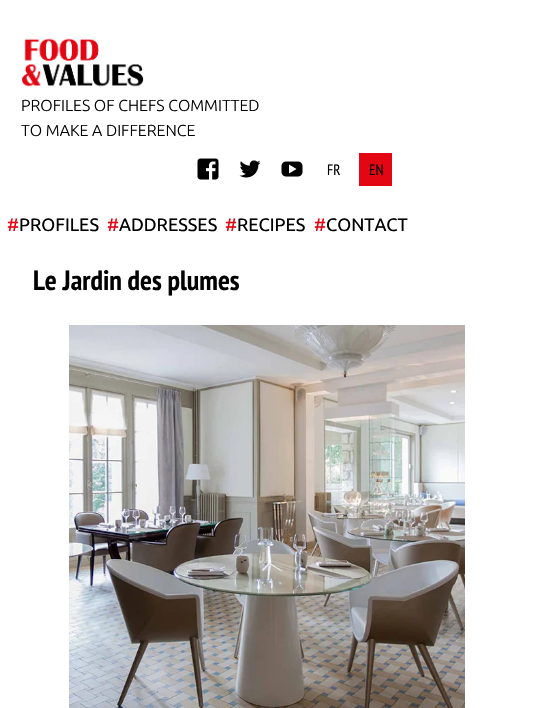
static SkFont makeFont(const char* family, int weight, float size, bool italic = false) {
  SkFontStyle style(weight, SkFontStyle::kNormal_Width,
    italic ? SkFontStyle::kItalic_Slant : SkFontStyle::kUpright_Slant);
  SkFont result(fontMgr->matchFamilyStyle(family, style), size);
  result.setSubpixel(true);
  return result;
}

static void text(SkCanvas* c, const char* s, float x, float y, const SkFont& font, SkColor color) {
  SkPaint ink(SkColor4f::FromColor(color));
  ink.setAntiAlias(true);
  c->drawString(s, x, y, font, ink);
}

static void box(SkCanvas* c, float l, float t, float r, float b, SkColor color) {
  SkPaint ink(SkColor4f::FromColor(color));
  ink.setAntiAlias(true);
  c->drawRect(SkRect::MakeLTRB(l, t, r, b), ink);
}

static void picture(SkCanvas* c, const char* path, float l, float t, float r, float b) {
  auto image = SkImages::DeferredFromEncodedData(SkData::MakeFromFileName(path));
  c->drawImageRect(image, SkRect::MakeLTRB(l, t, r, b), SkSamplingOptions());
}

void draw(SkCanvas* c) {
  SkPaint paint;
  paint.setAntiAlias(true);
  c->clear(0xffffffff);
  picture(c, "img_01.png", 22, 38, 144, 87);
  SkFont face1 = makeFont("Ubuntu", 300, 16);
  text(c, "PROFILES OF CHEFS COMMITTED", 21, 111, face1, 0xff000000);
  text(c, "TO MAKE A DIFFERENCE", 21, 136, face1, 0xff000000);
  picture(c, "img_02.png", 197, 158, 219, 180);
  picture(c, "img_03.png", 239, 160, 261, 178);
  picture(c, "img_04.png", 281, 161, 303, 177);
  SkFont face2 = makeFont("PT Sans Narrow", 400, 15);
  text(c, "FR", 327, 175, face2, 0xff000000);
  box(c, 359, 153, 392, 186, 0xffe30613);
  text(c, "EN", 369, 175, face2, 0xff000000);
  SkFont face3 = makeFont("Ubuntu", 400, 18);
  text(c, "#", 7, 231, face3, 0xffe30613);
  text(c, "PROFILES", 19, 231, face3, 0xff000000);
  text(c, "#", 107, 231, face3, 0xffe30613);
  text(c, "ADDRESSES", 119, 231, face3, 0xff000000);
  text(c, "#", 225, 231, face3, 0xffe30613);
  text(c, "RECIPES", 237, 231, face3, 0xff000000);
  text(c, "#", 314, 231, face3, 0xffe30613);
  text(c, "CONTACT", 326, 231, face3, 0xff000000);
  SkFont face4 = makeFont("PT Sans Narrow", 700, 28);
  text(c, "Le Jardin des plumes", 33, 290, face4, 0xff000000);
  picture(c, "img_05.png", 69, 325, 465, 708);
}
